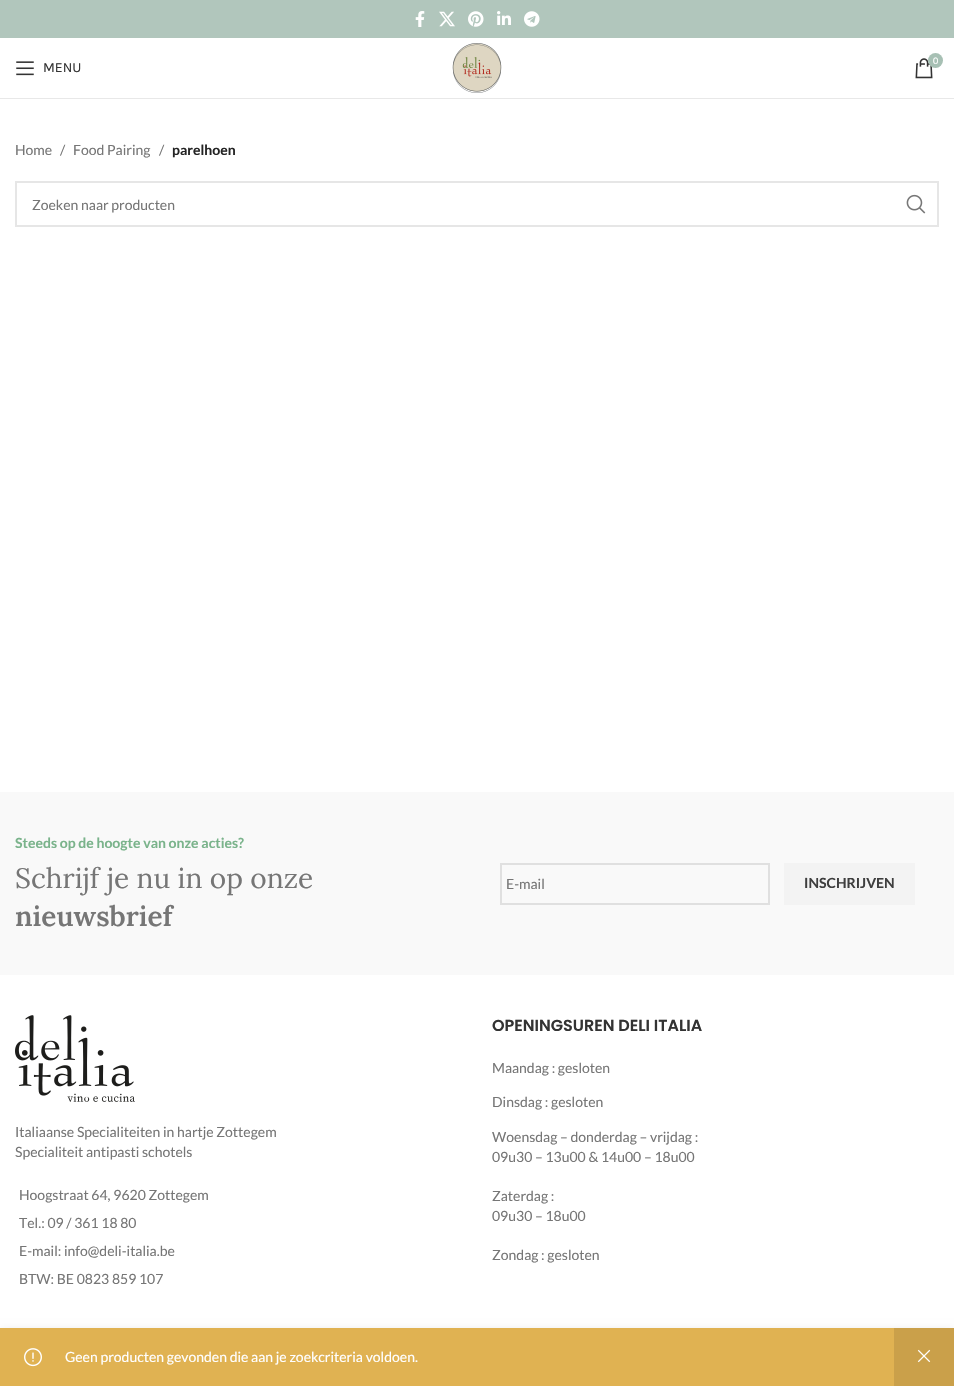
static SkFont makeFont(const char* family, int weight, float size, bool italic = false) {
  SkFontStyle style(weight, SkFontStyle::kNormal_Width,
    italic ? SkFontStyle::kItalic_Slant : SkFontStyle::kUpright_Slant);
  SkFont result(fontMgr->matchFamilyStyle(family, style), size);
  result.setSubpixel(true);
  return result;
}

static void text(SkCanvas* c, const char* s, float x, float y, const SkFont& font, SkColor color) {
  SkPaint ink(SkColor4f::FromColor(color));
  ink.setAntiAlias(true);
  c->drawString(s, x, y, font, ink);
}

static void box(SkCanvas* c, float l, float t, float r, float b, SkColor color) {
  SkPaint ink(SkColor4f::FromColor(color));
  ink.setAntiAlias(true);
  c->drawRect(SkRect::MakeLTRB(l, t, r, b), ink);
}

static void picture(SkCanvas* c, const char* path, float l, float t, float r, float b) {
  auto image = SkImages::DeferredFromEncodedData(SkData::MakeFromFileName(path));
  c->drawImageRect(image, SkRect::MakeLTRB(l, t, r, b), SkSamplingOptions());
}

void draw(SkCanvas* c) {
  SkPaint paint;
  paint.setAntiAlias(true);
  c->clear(0xffffffff);
  box(c, 0, 0, 954, 38, 0xffb1c6bc);
  picture(c, "img_01.png", 415, 11, 425, 27);
  picture(c, "img_02.png", 439, 11, 455, 27);
  picture(c, "img_03.png", 468, 11, 484, 27);
  picture(c, "img_04.png", 497, 11, 511, 25);
  picture(c, "img_05.png", 524, 11, 540, 27);
  box(c, 0, 98, 954, 99, 0xffe8e8e8);
  picture(c, "img_06.png", 452, 43, 502, 93);
  picture(c, "img_07.png", 915, 58, 933, 79);
  paint.setColor(0xffa7c0b4);
  c->drawCircle(935.5f, 60.5f, 7.5f, paint);
  SkFont face1 = makeFont("Lato", 400, 9);
  text(c, "0", 933, 64, face1, 0xffffffff);
  picture(c, "img_08.png", 16, 61, 34, 76);
  SkFont face2 = makeFont("Karla", 400, 14);
  text(c, "MENU", 43, 72, face2, 0xff333333);
  SkFont face3 = makeFont("Lato", 400, 14);
  text(c, "Home", 15, 155, face3, 0xff767676);
  text(c, "/", 60, 155, face3, 0xff767676);
  text(c, "Food Pairing", 73, 155, face3, 0xff767676);
  text(c, "/", 159, 155, face3, 0xff767676);
  SkFont face4 = makeFont("Lato", 700, 14);
  text(c, "parelhoen", 172, 155, face4, 0xff242424);
  paint.setStyle(SkPaint::kStroke_Style);
  paint.setStrokeWidth(2);
  paint.setColor(0xffe6e6e6);
  c->drawRect(SkRect::MakeLTRB(16, 182, 938, 226), paint);
  text(c, "Zoeken naar producten", 32, 210, face3, 0xff767676);
  picture(c, "img_09.png", 906, 194, 926, 214);
  paint.setStyle(SkPaint::kFill_Style);
  paint.setColor(0x1f000000);
  paint.setMaskFilter(SkMaskFilter::MakeBlur(kNormal_SkBlurStyle, 4.5f));
  c->drawRect(SkRect::MakeLTRB(0, 1331, 954, 1386), paint);
  paint.setMaskFilter(nullptr);
  box(c, 0, 1328, 894, 1386, 0xffe0b252);
  picture(c, "img_10.png", 24, 1348, 42, 1367);
  text(c, "Geen producten gevonden die aan je zoekcriteria voldoen.", 65, 1362, face3, 0xffffffff);
  box(c, 894, 1328, 954, 1386, 0xffcaa04a);
  picture(c, "img_11.png", 917, 1349, 931, 1363);
  box(c, 0, 792, 954, 975, 0xfff9f9f9);
  text(c, "Steeds op de hoogte van onze acties?", 15, 848, face4, 0xff7ab38b);
  SkFont face5 = makeFont("Lora", 400, 28);
  text(c, "Schrijf je nu in op onze", 15, 888, face5, 0xff767676);
  SkFont face6 = makeFont("Lora", 600, 28);
  text(c, "nieuwsbrief", 15, 926, face6, 0xff767676);
  paint.setStyle(SkPaint::kStroke_Style);
  paint.setColor(0xffe0e0e0);
  c->drawRect(SkRect::MakeLTRB(501, 864, 769, 904), paint);
  text(c, "E-mail", 506, 889, face3, 0xff767676);
  box(c, 784, 863, 915, 905, 0xfff3f3f3);
  text(c, "INSCHRIJVEN", 804, 888, face4, 0xff3e3e3e);
  picture(c, "img_12.png", 15, 1015, 135, 1102);
  text(c, "Italiaanse Specialiteiten in hartje Zottegem", 15, 1137, face3, 0xff767676);
  text(c, "Specialiteit antipasti schotels", 15, 1157, face3, 0xff767676);
  text(c, "Hoogstraat 64, 9620 Zottegem", 19, 1200, face3, 0xff767676);
  text(c, "Tel.: 09 / 361 18 80", 19, 1228, face3, 0xff767676);
  text(c, "E-mail: info@deli-italia.be", 19, 1256, face3, 0xff767676);
  text(c, "BTW: BE 0823 859 107", 19, 1284, face3, 0xff767676);
  SkFont face7 = makeFont("Poppins", 600, 16);
  text(c, "OPENINGSUREN DELI ITALIA", 492, 1031, face7, 0xff333333);
  text(c, "Maandag : gesloten", 492, 1073, face3, 0xff767676);
  text(c, "Dinsdag : gesloten", 492, 1107, face3, 0xff767676);
  text(c, "Woensdag – donderdag – vrijdag :", 492, 1142, face3, 0xff767676);
  text(c, "09u30 – 13u00 & 14u00 – 18u00", 492, 1162, face3, 0xff767676);
  text(c, "Zaterdag :", 492, 1201, face3, 0xff767676);
  text(c, "09u30 – 18u00", 492, 1221, face3, 0xff767676);
  text(c, "Zondag : gesloten", 492, 1260, face3, 0xff767676);
}
